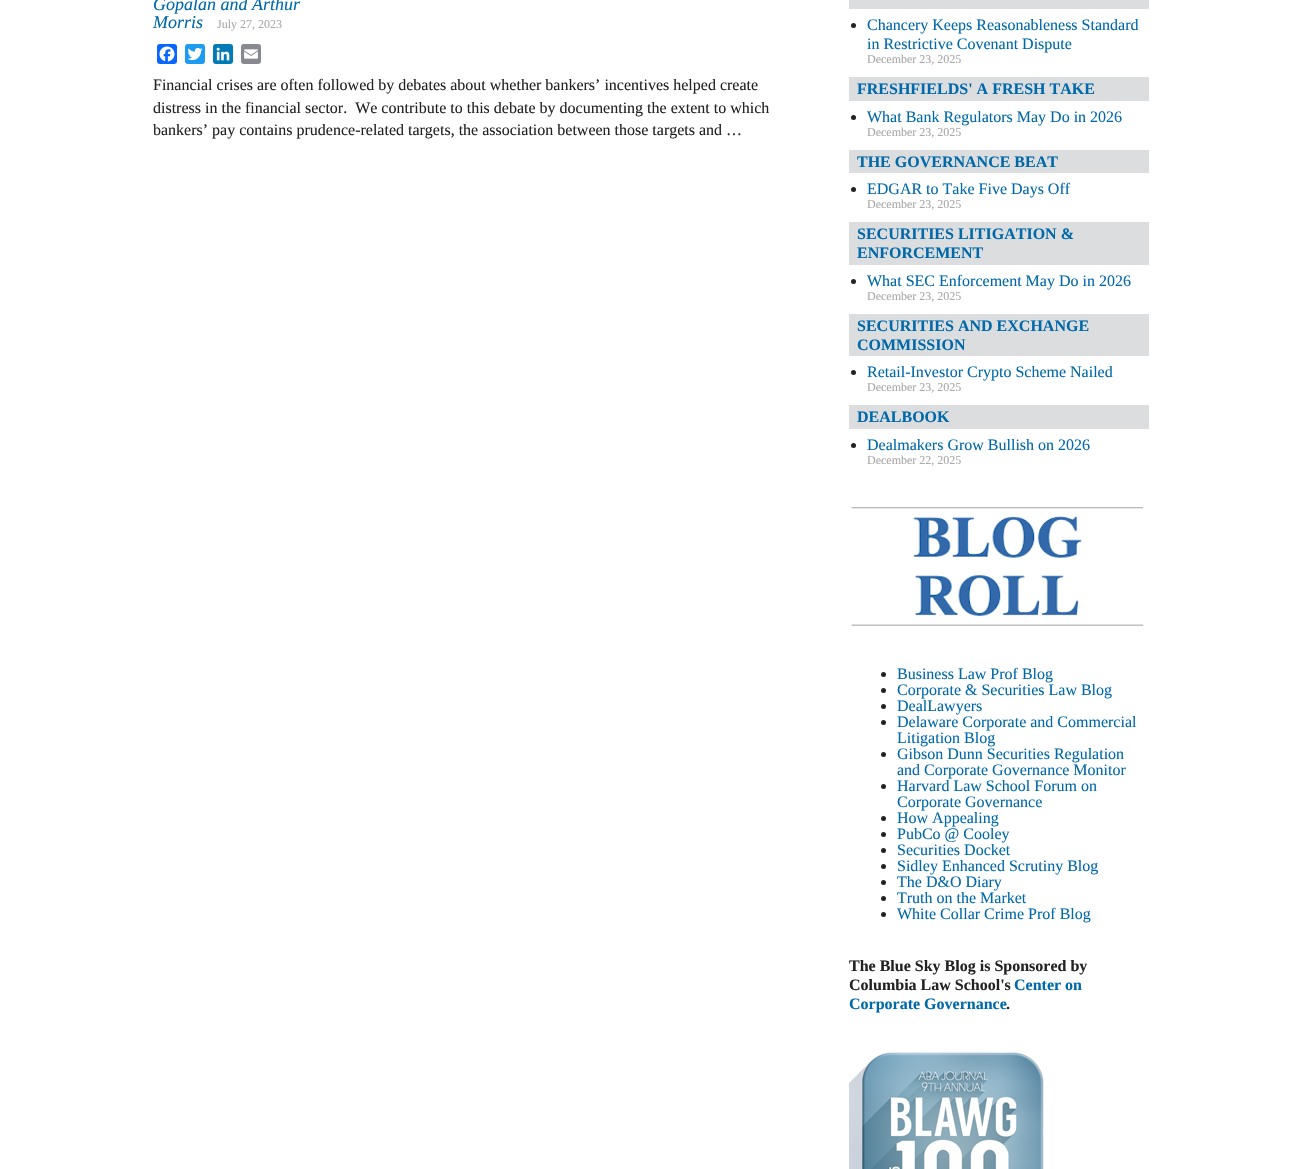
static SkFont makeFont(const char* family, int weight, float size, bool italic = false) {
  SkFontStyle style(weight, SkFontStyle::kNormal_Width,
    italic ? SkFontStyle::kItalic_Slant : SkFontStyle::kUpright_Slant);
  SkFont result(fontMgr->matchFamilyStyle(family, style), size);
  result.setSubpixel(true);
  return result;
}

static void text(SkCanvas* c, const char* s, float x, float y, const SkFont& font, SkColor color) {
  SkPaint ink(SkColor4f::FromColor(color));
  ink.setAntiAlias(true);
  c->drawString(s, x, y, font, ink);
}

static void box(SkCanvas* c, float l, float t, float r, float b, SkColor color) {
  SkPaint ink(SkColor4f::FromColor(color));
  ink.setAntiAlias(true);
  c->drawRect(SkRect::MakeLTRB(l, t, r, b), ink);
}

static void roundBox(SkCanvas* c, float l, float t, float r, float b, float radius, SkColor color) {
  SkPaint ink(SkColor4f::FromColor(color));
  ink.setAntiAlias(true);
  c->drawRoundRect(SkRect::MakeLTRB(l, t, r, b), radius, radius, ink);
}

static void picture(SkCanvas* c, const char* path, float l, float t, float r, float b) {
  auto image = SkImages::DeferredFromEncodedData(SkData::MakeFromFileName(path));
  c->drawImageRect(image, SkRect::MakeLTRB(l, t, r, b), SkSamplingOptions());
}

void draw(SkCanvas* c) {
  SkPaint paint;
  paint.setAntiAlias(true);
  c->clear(0xffffffff);
  SkFont face1 = makeFont("Liberation Serif", 400, 18, true);
  text(c, "Gopalan and Arthur", 153, 10, face1, 0xff0069aa);
  text(c, "Morris", 153, 28, face1, 0xff0069aa);
  SkFont face2 = makeFont("Liberation Serif", 400, 12);
  text(c, "July 27, 2023", 217, 28, face2, 0xffa9a8a8);
  roundBox(c, 157, 44, 177, 64, 3, 0xff0866ff);
  picture(c, "img_01.png", 159, 46, 175, 62);
  roundBox(c, 185, 44, 205, 64, 3, 0xff1d9bf0);
  picture(c, "img_02.png", 187, 47, 203, 61);
  roundBox(c, 213, 44, 233, 64, 3, 0xff007bb5);
  picture(c, "img_03.png", 216, 47, 230, 61);
  roundBox(c, 241, 44, 261, 64, 3, 0xff888990);
  picture(c, "img_04.png", 244, 49, 258, 59);
  SkFont face3 = makeFont("Liberation Serif", 400, 16);
  text(c, "Financial crises are often followed by debates about whether bankers’ incentives helped create", 153, 90, face3, 0xff232323);
  text(c, "distress in the financial sector.  We contribute to this debate by documenting the extent to which", 153, 113, face3, 0xff232323);
  text(c, "bankers’ pay contains prudence-related targets, the association between those targets and …", 153, 135, face3, 0xff232323);
  box(c, 849, 0, 1149, 9, 0xffdcdddf);
  paint.setColor(0xff232323);
  c->drawCircle(853.5f, 25.5f, 2.5f, paint);
  text(c, "Chancery Keeps Reasonableness Standard", 867, 30, face3, 0xff0069aa);
  text(c, "in Restrictive Covenant Dispute", 867, 49, face3, 0xff0069aa);
  text(c, "December 23, 2025", 867, 63, face2, 0xffa9a8a8);
  box(c, 849, 77, 1149, 101, 0xffdcdddf);
  SkFont face4 = makeFont("Liberation Serif", 700, 16);
  text(c, "FRESHFIELDS' A FRESH TAKE", 857, 94, face4, 0xff0069aa);
  c->drawCircle(853.5f, 117.5f, 2.5f, paint);
  text(c, "What Bank Regulators May Do in 2026", 867, 122, face3, 0xff0069aa);
  text(c, "December 23, 2025", 867, 136, face2, 0xffa9a8a8);
  box(c, 849, 150, 1149, 173, 0xffdcdddf);
  text(c, "THE GOVERNANCE BEAT", 857, 167, face4, 0xff0069aa);
  c->drawCircle(853.5f, 189.5f, 2.5f, paint);
  text(c, "EDGAR to Take Five Days Off", 867, 194, face3, 0xff0069aa);
  text(c, "December 23, 2025", 867, 208, face2, 0xffa9a8a8);
  box(c, 849, 222, 1149, 265, 0xffdcdddf);
  text(c, "SECURITIES LITIGATION &", 857, 239, face4, 0xff0069aa);
  text(c, "ENFORCEMENT", 857, 258, face4, 0xff0069aa);
  c->drawCircle(853.5f, 281.5f, 2.5f, paint);
  text(c, "What SEC Enforcement May Do in 2026", 867, 286, face3, 0xff0069aa);
  text(c, "December 23, 2025", 867, 300, face2, 0xffa9a8a8);
  box(c, 849, 314, 1149, 356, 0xffdcdddf);
  text(c, "SECURITIES AND EXCHANGE", 857, 331, face4, 0xff0069aa);
  text(c, "COMMISSION", 857, 350, face4, 0xff0069aa);
  c->drawCircle(853.5f, 372.5f, 2.5f, paint);
  text(c, "Retail-Investor Crypto Scheme Nailed", 867, 377, face3, 0xff0069aa);
  text(c, "December 23, 2025", 867, 391, face2, 0xffa9a8a8);
  box(c, 849, 405, 1149, 429, 0xffdcdddf);
  text(c, "DEALBOOK", 857, 422, face4, 0xff0069aa);
  c->drawCircle(853.5f, 445.5f, 2.5f, paint);
  text(c, "Dealmakers Grow Bullish on 2026", 867, 450, face3, 0xff0069aa);
  text(c, "December 22, 2025", 867, 464, face2, 0xffa9a8a8);
  picture(c, "img_05.png", 851, 507, 1144, 626);
  c->drawCircle(883.5f, 674.5f, 2.5f, paint);
  text(c, "Business Law Prof Blog", 897, 679, face3, 0xff0069aa);
  c->drawCircle(883.5f, 690.5f, 2.5f, paint);
  text(c, "Corporate & Securities Law Blog", 897, 695, face3, 0xff0069aa);
  c->drawCircle(883.5f, 706.5f, 2.5f, paint);
  text(c, "DealLawyers", 897, 711, face3, 0xff0069aa);
  c->drawCircle(883.5f, 722.5f, 2.5f, paint);
  text(c, "Delaware Corporate and Commercial", 897, 727, face3, 0xff0069aa);
  text(c, "Litigation Blog", 897, 743, face3, 0xff0069aa);
  c->drawCircle(883.5f, 754.5f, 2.5f, paint);
  text(c, "Gibson Dunn Securities Regulation", 897, 759, face3, 0xff0069aa);
  text(c, "and Corporate Governance Monitor", 897, 775, face3, 0xff0069aa);
  c->drawCircle(883.5f, 786.5f, 2.5f, paint);
  text(c, "Harvard Law School Forum on", 897, 791, face3, 0xff0069aa);
  text(c, "Corporate Governance", 897, 807, face3, 0xff0069aa);
  c->drawCircle(883.5f, 818.5f, 2.5f, paint);
  text(c, "How Appealing", 897, 823, face3, 0xff0069aa);
  c->drawCircle(883.5f, 834.5f, 2.5f, paint);
  text(c, "PubCo @ Cooley", 897, 839, face3, 0xff0069aa);
  c->drawCircle(883.5f, 850.5f, 2.5f, paint);
  text(c, "Securities Docket", 897, 855, face3, 0xff0069aa);
  c->drawCircle(883.5f, 866.5f, 2.5f, paint);
  text(c, "Sidley Enhanced Scrutiny Blog", 897, 871, face3, 0xff0069aa);
  c->drawCircle(883.5f, 882.5f, 2.5f, paint);
  text(c, "The D&O Diary", 897, 887, face3, 0xff0069aa);
  c->drawCircle(883.5f, 898.5f, 2.5f, paint);
  text(c, "Truth on the Market", 897, 903, face3, 0xff0069aa);
  c->drawCircle(883.5f, 914.5f, 2.5f, paint);
  text(c, "White Collar Crime Prof Blog", 897, 919, face3, 0xff0069aa);
  text(c, "The Blue Sky Blog is Sponsored by", 849, 971, face4, 0xff232323);
  text(c, "Columbia Law School's", 849, 990, face4, 0xff232323);
  text(c, "Center on", 1014, 990, face4, 0xff0069aa);
  text(c, "Corporate Governance", 849, 1009, face4, 0xff0069aa);
  text(c, ".", 1006, 1009, face4, 0xff232323);
  picture(c, "img_06.png", 849, 1052, 1044, 1169);
}
